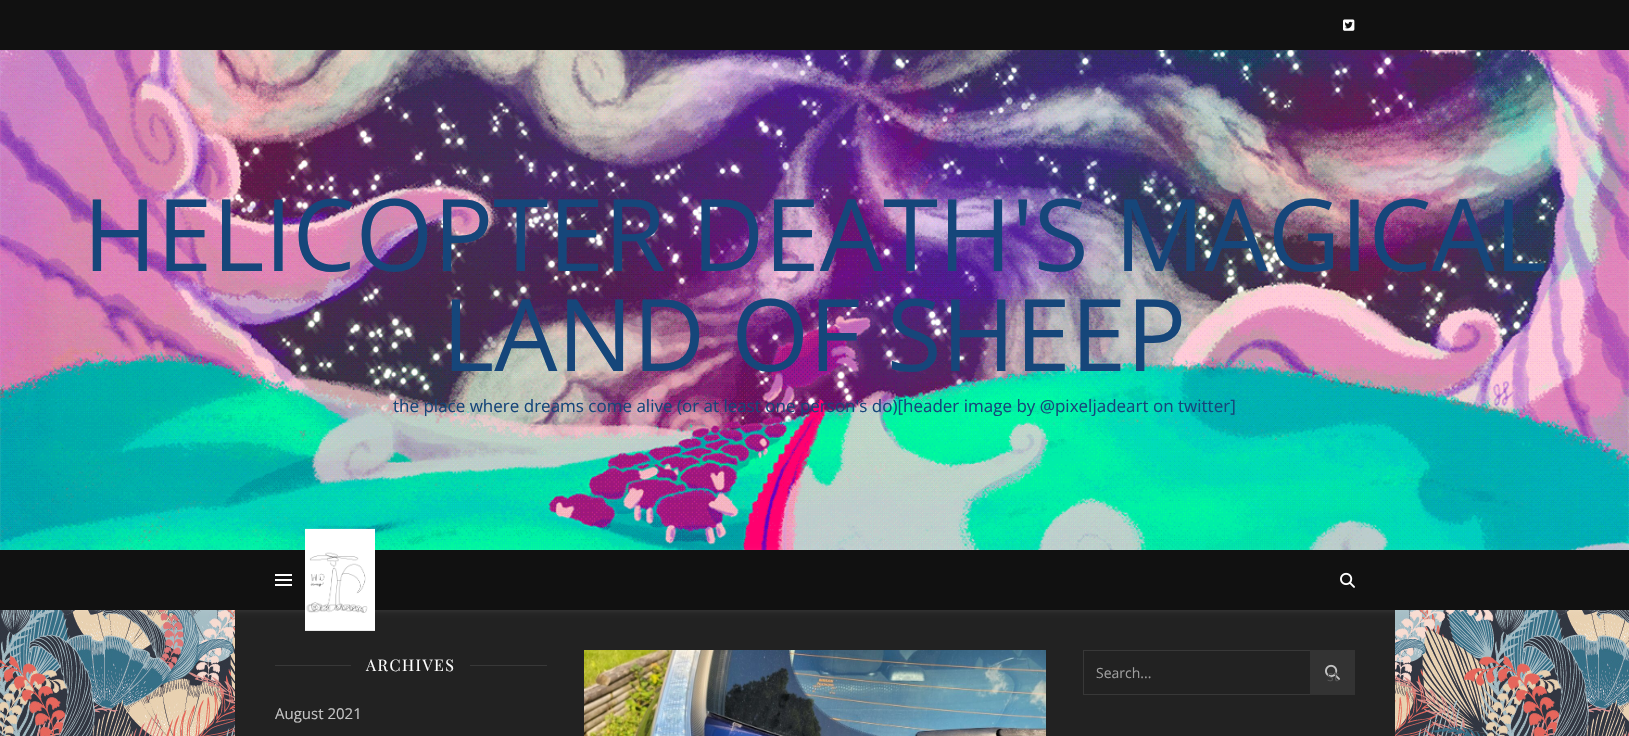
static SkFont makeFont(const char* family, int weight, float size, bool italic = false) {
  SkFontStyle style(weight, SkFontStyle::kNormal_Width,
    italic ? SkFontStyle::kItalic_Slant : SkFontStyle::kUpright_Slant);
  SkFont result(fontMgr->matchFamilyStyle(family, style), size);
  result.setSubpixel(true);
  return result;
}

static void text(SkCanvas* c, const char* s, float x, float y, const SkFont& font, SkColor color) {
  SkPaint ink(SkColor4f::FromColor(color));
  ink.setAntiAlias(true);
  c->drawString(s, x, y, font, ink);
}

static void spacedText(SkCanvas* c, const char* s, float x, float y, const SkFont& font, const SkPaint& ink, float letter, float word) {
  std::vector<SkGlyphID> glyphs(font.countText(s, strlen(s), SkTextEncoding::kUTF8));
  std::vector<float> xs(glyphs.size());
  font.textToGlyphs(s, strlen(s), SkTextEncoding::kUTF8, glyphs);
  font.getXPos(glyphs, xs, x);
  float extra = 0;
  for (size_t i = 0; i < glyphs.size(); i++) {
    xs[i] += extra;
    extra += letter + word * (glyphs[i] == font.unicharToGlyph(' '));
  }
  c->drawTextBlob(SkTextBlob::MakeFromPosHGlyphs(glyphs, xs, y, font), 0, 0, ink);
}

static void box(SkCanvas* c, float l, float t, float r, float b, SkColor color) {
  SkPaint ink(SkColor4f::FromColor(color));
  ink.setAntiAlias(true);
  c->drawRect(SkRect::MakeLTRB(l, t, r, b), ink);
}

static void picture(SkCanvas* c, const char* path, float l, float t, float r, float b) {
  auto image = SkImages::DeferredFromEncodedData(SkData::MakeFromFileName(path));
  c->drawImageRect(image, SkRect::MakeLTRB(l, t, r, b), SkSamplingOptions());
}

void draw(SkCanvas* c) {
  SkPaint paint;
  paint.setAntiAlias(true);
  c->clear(0xffffffff);
  picture(c, "img_01.png", 0, 610, 1629, 736);
  box(c, 0, 0, 1629, 50, 0xff111111);
  picture(c, "img_02.png", 1343, 19, 1355, 31);
  picture(c, "img_03.png", 0, 50, 1629, 550);
  SkFont face1 = makeFont("Open Sans", 400, 100);
  text(c, "HELICOPTER DEATH'S MAGICAL", 83, 271, face1, 0xff16467a);
  text(c, "LAND OF SHEEP", 442, 371, face1, 0xff16467a);
  SkFont face2 = makeFont("Open Sans", 400, 17);
  text(c, "the place where dreams come alive (or at least one person's do)[header image by @pixeljadeart on twitter]", 393, 412, face2, 0xff16467a);
  box(c, 235, 610, 1395, 736, 0xff222222);
  paint.setColor(0x1affffff);
  paint.setMaskFilter(SkMaskFilter::MakeBlur(kNormal_SkBlurStyle, 2.5f));
  c->drawRect(SkRect::MakeLTRB(0, 551, 1629, 611), paint);
  paint.setMaskFilter(nullptr);
  box(c, 0, 550, 1629, 610, 0xff111111);
  box(c, 275, 574, 292, 576, 0xffffffff);
  box(c, 275, 579, 292, 581, 0xffffffff);
  box(c, 275, 584, 292, 586, 0xffffffff);
  picture(c, "img_04.png", 305, 528, 375, 631);
  picture(c, "img_05.png", 1340, 572, 1355, 588);
  box(c, 275, 665, 351, 666, 0xff383838);
  SkFont face3 = makeFont("Playfair Display", 400, 16);
  paint.setColor(0xffffffff);
  spacedText(c, "ARCHIVES", 366, 671, face3, paint, 1.5f, 0);
  box(c, 470, 665, 547, 666, 0xff383838);
  SkFont face4 = makeFont("Open Sans", 400, 15);
  text(c, "August 2021", 275, 719, face4, 0xffc4c4c4);
  picture(c, "img_06.png", 584, 650, 1046, 736);
  paint.setStyle(SkPaint::kStroke_Style);
  paint.setStrokeWidth(1);
  paint.setColor(0xff383838);
  c->drawRect(SkRect::MakeLTRB(1083.5f, 650.5f, 1354.5f, 694.5f), paint);
  SkFont face5 = makeFont("Open Sans", 400, 14);
  text(c, "Search...", 1096, 678, face5, 0xff9e9e9e);
  box(c, 1310, 650, 1355, 695, 0xff333333);
  picture(c, "img_07.png", 1325, 664, 1340, 680);
  text(c, "st", 1327, 681, face5, 0xff555555);
}
